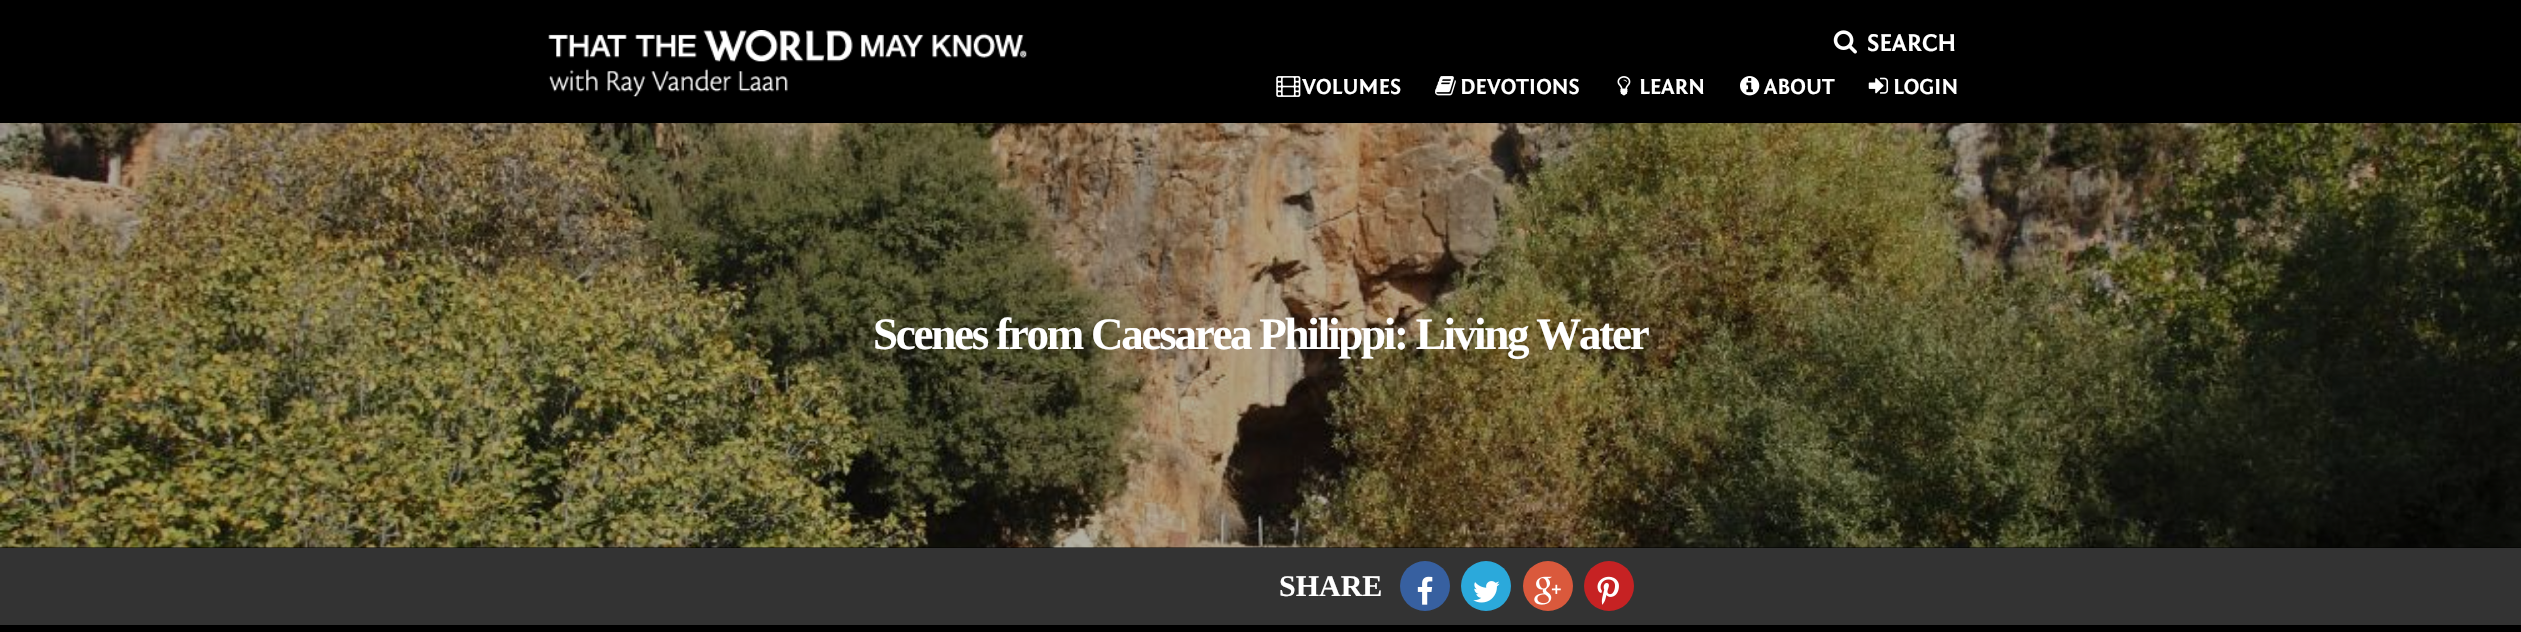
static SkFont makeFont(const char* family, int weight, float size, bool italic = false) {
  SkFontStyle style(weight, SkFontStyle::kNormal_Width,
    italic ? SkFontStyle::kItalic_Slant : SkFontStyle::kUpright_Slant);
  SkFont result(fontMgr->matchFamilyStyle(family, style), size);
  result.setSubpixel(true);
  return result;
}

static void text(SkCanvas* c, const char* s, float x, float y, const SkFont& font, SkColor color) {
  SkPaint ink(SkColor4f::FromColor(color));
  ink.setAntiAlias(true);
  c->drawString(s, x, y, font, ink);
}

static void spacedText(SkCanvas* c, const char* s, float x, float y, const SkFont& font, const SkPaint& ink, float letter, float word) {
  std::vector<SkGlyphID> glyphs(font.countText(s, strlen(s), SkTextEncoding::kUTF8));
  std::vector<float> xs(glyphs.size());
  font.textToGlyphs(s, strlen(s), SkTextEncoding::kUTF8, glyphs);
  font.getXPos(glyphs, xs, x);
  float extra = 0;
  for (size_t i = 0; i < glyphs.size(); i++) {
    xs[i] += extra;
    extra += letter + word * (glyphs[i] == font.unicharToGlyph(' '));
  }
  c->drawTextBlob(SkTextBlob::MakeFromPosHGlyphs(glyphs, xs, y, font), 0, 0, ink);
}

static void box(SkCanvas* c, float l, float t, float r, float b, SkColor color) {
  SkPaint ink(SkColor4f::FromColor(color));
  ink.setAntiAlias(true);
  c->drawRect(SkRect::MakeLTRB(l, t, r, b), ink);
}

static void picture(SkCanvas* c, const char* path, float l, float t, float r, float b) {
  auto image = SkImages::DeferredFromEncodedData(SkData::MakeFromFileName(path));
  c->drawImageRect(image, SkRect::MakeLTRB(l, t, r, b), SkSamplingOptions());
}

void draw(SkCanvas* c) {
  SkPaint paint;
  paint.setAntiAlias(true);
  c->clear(0xff000000);
  picture(c, "img_01.png", 548, 30, 1027, 97);
  picture(c, "img_02.png", 1833, 30, 1857, 54);
  SkFont face1 = makeFont("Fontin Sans", 700, 25);
  text(c, "SEARCH", 1867, 51, face1, 0xffffffff);
  picture(c, "img_03.png", 1276, 76, 1301, 97);
  SkFont face2 = makeFont("Fontin Sans", 700, 22.5f);
  text(c, "VOLUMES", 1302, 94, face2, 0xffffffff);
  picture(c, "img_04.png", 1435, 76, 1456, 96);
  text(c, "DEVOTIONS", 1460, 94, face2, 0xffffffff);
  picture(c, "img_05.png", 1617, 76, 1631, 96);
  text(c, "LEARN", 1639, 94, face2, 0xffffffff);
  picture(c, "img_06.png", 1740, 76, 1760, 96);
  text(c, "ABOUT", 1764, 94, face2, 0xffffffff);
  picture(c, "img_07.png", 1868, 77, 1889, 94);
  text(c, "LOGIN", 1893, 94, face2, 0xffffffff);
  picture(c, "img_08.png", 0, 123, 2521, 548);
  SkFont face3 = makeFont("Liberation Serif", 700, 45);
  paint.setColor(0xffffffff);
  spacedText(c, "Scenes from Caesarea Philippi: Living Water", 873, 349, face3, paint, -2.25f, 0);
  box(c, 0, 548, 2521, 625, 0xff333333);
  SkFont face4 = makeFont("Liberation Serif", 700, 30);
  text(c, "SHARE", 1279, 596, face4, 0xffffffff);
  paint.setColor(0xff3760a0);
  c->drawCircle(1425, 586, 25, paint);
  picture(c, "img_09.png", 1417, 576, 1433, 605);
  paint.setColor(0xff2ba9db);
  c->drawCircle(1486, 586, 25, paint);
  picture(c, "img_10.png", 1473, 581, 1500, 603);
  paint.setColor(0xffda593c);
  c->drawCircle(1548, 586, 25, paint);
  picture(c, "img_11.png", 1534, 576, 1561, 605);
  paint.setColor(0xffc62223);
  c->drawCircle(1609, 586, 25, paint);
  picture(c, "img_12.png", 1597, 576, 1619, 605);
}
